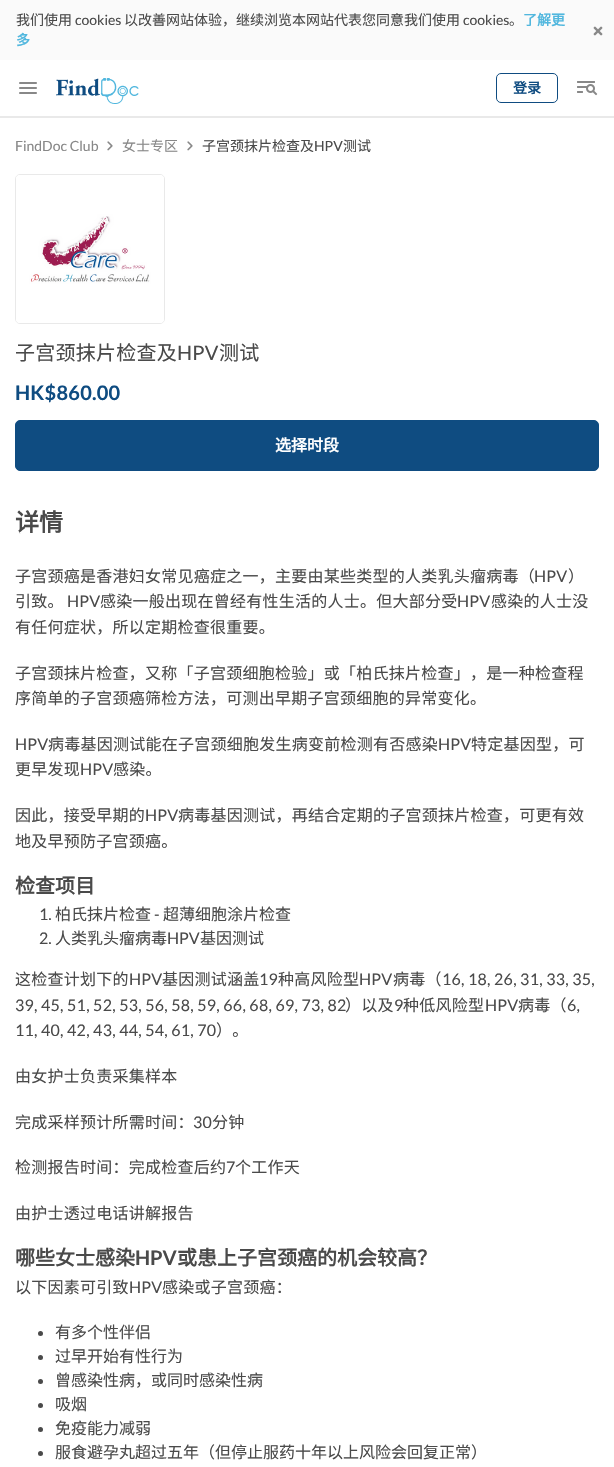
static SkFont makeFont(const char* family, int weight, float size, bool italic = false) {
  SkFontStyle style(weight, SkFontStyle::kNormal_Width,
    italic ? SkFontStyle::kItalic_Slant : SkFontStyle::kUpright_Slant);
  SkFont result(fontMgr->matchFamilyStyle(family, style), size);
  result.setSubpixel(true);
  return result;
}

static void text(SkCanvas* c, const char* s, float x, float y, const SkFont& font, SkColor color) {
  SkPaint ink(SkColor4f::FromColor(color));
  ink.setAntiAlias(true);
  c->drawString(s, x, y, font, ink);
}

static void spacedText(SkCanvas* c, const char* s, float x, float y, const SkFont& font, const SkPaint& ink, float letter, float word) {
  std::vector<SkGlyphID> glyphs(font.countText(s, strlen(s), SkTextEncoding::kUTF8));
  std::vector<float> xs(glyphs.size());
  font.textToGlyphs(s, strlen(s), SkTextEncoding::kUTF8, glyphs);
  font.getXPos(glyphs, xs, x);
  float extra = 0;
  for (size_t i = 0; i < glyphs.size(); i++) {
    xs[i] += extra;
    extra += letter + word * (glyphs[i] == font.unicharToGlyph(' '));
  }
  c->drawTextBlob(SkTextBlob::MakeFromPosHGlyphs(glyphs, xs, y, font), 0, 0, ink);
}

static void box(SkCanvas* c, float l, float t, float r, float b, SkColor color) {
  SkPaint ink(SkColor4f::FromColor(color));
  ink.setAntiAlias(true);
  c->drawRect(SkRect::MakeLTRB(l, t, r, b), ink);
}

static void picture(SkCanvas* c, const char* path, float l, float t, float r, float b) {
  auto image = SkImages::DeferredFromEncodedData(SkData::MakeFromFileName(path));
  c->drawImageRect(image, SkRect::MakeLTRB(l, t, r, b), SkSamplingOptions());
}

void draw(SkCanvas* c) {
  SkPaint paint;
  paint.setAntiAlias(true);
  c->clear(0xffffffff);
  box(c, 0, 0, 614, 60, 0xfffafafa);
  SkFont face1 = makeFont("Noto Sans CJK SC", 400, 14);
  text(c, "我们使用", 16, 25, face1, 0xff4a4a4a);
  SkFont face2 = makeFont("Lato", 400, 14);
  text(c, "cookies", 75, 25, face2, 0xff4a4a4a);
  text(c, "以改善网站体验，继续浏览本网站代表您同意我们使用", 124, 25, face1, 0xff4a4a4a);
  text(c, "cookies", 463, 25, face2, 0xff4a4a4a);
  text(c, "。", 509, 25, face1, 0xff4a4a4a);
  SkFont face3 = makeFont("Noto Sans CJK SC", 700, 14);
  text(c, "了解更", 523, 25, face3, 0xff51b7de);
  text(c, "多", 16, 45, face3, 0xff51b7de);
  picture(c, "img_01.png", 593, 26, 603, 36);
  picture(c, "img_02.png", 19, 82, 37, 94);
  picture(c, "img_03.png", 56, 78, 139, 104);
  paint.setStyle(SkPaint::kStroke_Style);
  paint.setStrokeWidth(1);
  paint.setColor(0xff0f4c81);
  c->drawRoundRect(SkRect::MakeLTRB(496.5f, 73.5f, 557.5f, 102.5f), 4.5f, 4.5f, paint);
  text(c, "登录", 513, 93, face3, 0xff0f4c81);
  picture(c, "img_04.png", 577, 81, 598, 96);
  box(c, 0, 116, 614, 118, 0xffe9e9e9);
  text(c, "FindDoc Club", 15, 151, face2, 0xff888888);
  picture(c, "img_05.png", 107, 141, 113, 151);
  text(c, "女士专区", 122, 151, face1, 0xff888888);
  picture(c, "img_05.png", 187, 141, 193, 151);
  text(c, "子宫颈抹片检查及", 202, 151, face1, 0xff4a4a4a);
  text(c, "HPV", 314, 151, face2, 0xff4a4a4a);
  text(c, "测试", 343, 151, face1, 0xff4a4a4a);
  paint.setColor(0xffe9e9e9);
  c->drawRoundRect(SkRect::MakeLTRB(15.5f, 174.5f, 164.5f, 323.5f), 4.5f, 4.5f, paint);
  picture(c, "img_06.png", 16, 175, 164, 323);
  SkFont face4 = makeFont("Noto Sans CJK SC", 400, 20);
  paint.setStyle(SkPaint::kFill_Style);
  paint.setColor(0xff4a4a4a);
  spacedText(c, "子宫颈抹片检查及", 15, 360, face4, paint, 0.25f, 0);
  SkFont face5 = makeFont("Lato", 400, 20);
  spacedText(c, "HPV", 177, 360, face5, paint, 0.25f, 0);
  spacedText(c, "测试", 219, 360, face4, paint, 0.25f, 0);
  SkFont face6 = makeFont("Lato", 700, 20);
  paint.setColor(0xff0f4c81);
  spacedText(c, "HK$860.00", 15, 400, face6, paint, 0.25f, 0);
  c->drawRoundRect(SkRect::MakeLTRB(15.5f, 420.5f, 598.5f, 470.5f), 4.5f, 4.5f, paint);
  paint.setStyle(SkPaint::kStroke_Style);
  c->drawRoundRect(SkRect::MakeLTRB(15.5f, 420.5f, 598.5f, 470.5f), 4.5f, 4.5f, paint);
  SkFont face7 = makeFont("Noto Sans CJK SC", 700, 16);
  text(c, "选择时段", 275, 451, face7, 0xffffffff);
  SkFont face8 = makeFont("Noto Sans CJK SC", 700, 24);
  text(c, "详情", 15, 531, face8, 0xff4a4a4a);
  SkFont face9 = makeFont("Noto Sans CJK SC", 400, 16);
  paint.setStyle(SkPaint::kFill_Style);
  paint.setColor(0xff4a4a4a);
  spacedText(c, "子宫颈癌是香港妇女常见癌症之一，主要由某些类型的人类乳头瘤病毒（", 15, 582, face9, paint, 0.25f, 0);
  SkFont face10 = makeFont("Lato", 400, 16);
  spacedText(c, "HPV", 534, 582, face10, paint, 0.25f, 0);
  spacedText(c, "）", 568, 582, face9, paint, 0.25f, 0);
  spacedText(c, "引致。", 15, 607, face9, paint, 0.25f, 0);
  spacedText(c, "HPV", 67, 607, face10, paint, 0.25f, 0);
  spacedText(c, "感染一般出现在曾经有性生活的人士。但大部分受", 100, 607, face9, paint, 0.25f, 0);
  spacedText(c, "HPV", 457, 607, face10, paint, 0.25f, 0);
  spacedText(c, "感染的人士没", 491, 607, face9, paint, 0.25f, 0);
  spacedText(c, "有任何症状，所以定期检查很重要。", 15, 633, face9, paint, 0.25f, 0);
  spacedText(c, "子宫颈抹片检查，又称「子宫颈细胞检验」或「柏氏抹片检查」，是一种检查程", 15, 679, face9, paint, 0.25f, 0);
  spacedText(c, "序简单的子宫颈癌筛检方法，可测出早期子宫颈细胞的异常变化。", 15, 704, face9, paint, 0.25f, 0);
  spacedText(c, "HPV", 15, 750, face10, paint, 0.25f, 0);
  spacedText(c, "病毒基因测试能在子宫颈细胞发生病变前检测有否感染", 48, 750, face9, paint, 0.25f, 0);
  spacedText(c, "HPV", 438, 750, face10, paint, 0.25f, 0);
  spacedText(c, "特定基因型，可", 471, 750, face9, paint, 0.25f, 0);
  spacedText(c, "更早发现", 15, 775, face9, paint, 0.25f, 0);
  spacedText(c, "HPV", 80, 775, face10, paint, 0.25f, 0);
  spacedText(c, "感染。", 113, 775, face9, paint, 0.25f, 0);
  spacedText(c, "因此，接受早期的", 15, 821, face9, paint, 0.25f, 0);
  spacedText(c, "HPV", 145, 821, face10, paint, 0.25f, 0);
  spacedText(c, "病毒基因测试，再结合定期的子宫颈抹片检查，可更有效", 178, 821, face9, paint, 0.25f, 0);
  spacedText(c, "地及早预防子宫颈癌。", 15, 847, face9, paint, 0.25f, 0);
  SkFont face11 = makeFont("Noto Sans CJK SC", 700, 20);
  text(c, "检查项目", 15, 893, face11, 0xff4a4a4a);
  text(c, "1.", 39, 920, face10, 0xff4a4a4a);
  text(c, "柏氏抹片检查", 55, 920, face9, 0xff4a4a4a);
  text(c, "-", 154, 920, face10, 0xff4a4a4a);
  text(c, "超薄细胞涂片检查", 163, 920, face9, 0xff4a4a4a);
  text(c, "2.", 39, 944, face10, 0xff4a4a4a);
  text(c, "人类乳头瘤病毒", 55, 944, face9, 0xff4a4a4a);
  text(c, "HPV", 167, 944, face10, 0xff4a4a4a);
  text(c, "基因测试", 200, 944, face9, 0xff4a4a4a);
  spacedText(c, "这检查计划下的", 15, 985, face9, paint, 0.25f, 0);
  spacedText(c, "HPV", 129, 985, face10, paint, 0.25f, 0);
  spacedText(c, "基因测试涵盖", 162, 985, face9, paint, 0.25f, 0);
  spacedText(c, "19", 259, 985, face10, paint, 0.25f, 0);
  spacedText(c, "种高风险型", 278, 985, face9, paint, 0.25f, 0);
  spacedText(c, "HPV", 359, 985, face10, paint, 0.25f, 0);
  spacedText(c, "病毒（", 393, 985, face9, paint, 0.25f, 0);
  spacedText(c, "16, 18, 26, 31, 33, 35,", 442, 985, face10, paint, 0.25f, 0);
  spacedText(c, "39, 45, 51, 52, 53, 56, 58, 59, 66, 68, 69, 73, 82", 15, 1011, face10, paint, 0.25f, 0);
  spacedText(c, "）以及", 345, 1011, face9, paint, 0.25f, 0);
  spacedText(c, "9", 394, 1011, face10, paint, 0.25f, 0);
  spacedText(c, "种低风险型", 403, 1011, face9, paint, 0.25f, 0);
  spacedText(c, "HPV", 485, 1011, face10, paint, 0.25f, 0);
  spacedText(c, "病毒（", 518, 1011, face9, paint, 0.25f, 0);
  spacedText(c, "6,", 567, 1011, face10, paint, 0.25f, 0);
  spacedText(c, "11, 40, 42, 43, 44, 54, 61, 70", 15, 1036, face10, paint, 0.25f, 0);
  spacedText(c, "）。", 216, 1036, face9, paint, 0.25f, 0);
  spacedText(c, "由女护士负责采集样本", 15, 1082, face9, paint, 0.25f, 0);
  spacedText(c, "完成采样预计所需时间：", 15, 1128, face9, paint, 0.25f, 0);
  spacedText(c, "30", 193, 1128, face10, paint, 0.25f, 0);
  spacedText(c, "分钟", 212, 1128, face9, paint, 0.25f, 0);
  spacedText(c, "检测报告时间：完成检查后约", 15, 1173, face9, paint, 0.25f, 0);
  spacedText(c, "7", 226, 1173, face10, paint, 0.25f, 0);
  spacedText(c, "个工作天", 235, 1173, face9, paint, 0.25f, 0);
  spacedText(c, "由护士透过电话讲解报告", 15, 1219, face9, paint, 0.25f, 0);
  text(c, "哪些女士感染", 15, 1265, face11, 0xff4a4a4a);
  text(c, "HPV", 135, 1265, face6, 0xff4a4a4a);
  text(c, "或患上子宫颈癌的机会较高？", 177, 1265, face11, 0xff4a4a4a);
  spacedText(c, "以下因素可引致", 15, 1293, face9, paint, 0.25f, 0);
  spacedText(c, "HPV", 129, 1293, face10, paint, 0.25f, 0);
  spacedText(c, "感染或子宫颈癌：", 162, 1293, face9, paint, 0.25f, 0);
  c->drawCircle(40.5f, 1333.5f, 2.5f, paint);
  text(c, "有多个性伴侣", 55, 1338, face9, 0xff4a4a4a);
  c->drawCircle(40.5f, 1357.5f, 2.5f, paint);
  text(c, "过早开始有性行为", 55, 1362, face9, 0xff4a4a4a);
  c->drawCircle(40.5f, 1381.5f, 2.5f, paint);
  text(c, "曾感染性病，或同时感染性病", 55, 1386, face9, 0xff4a4a4a);
  c->drawCircle(40.5f, 1405.5f, 2.5f, paint);
  text(c, "吸烟", 55, 1410, face9, 0xff4a4a4a);
  c->drawCircle(40.5f, 1429.5f, 2.5f, paint);
  text(c, "免疫能力减弱", 55, 1434, face9, 0xff4a4a4a);
  c->drawCircle(40.5f, 1453.5f, 2.5f, paint);
  text(c, "服食避孕丸超过五年（但停止服药十年以上风险会回复正常）", 55, 1458, face9, 0xff4a4a4a);
}
